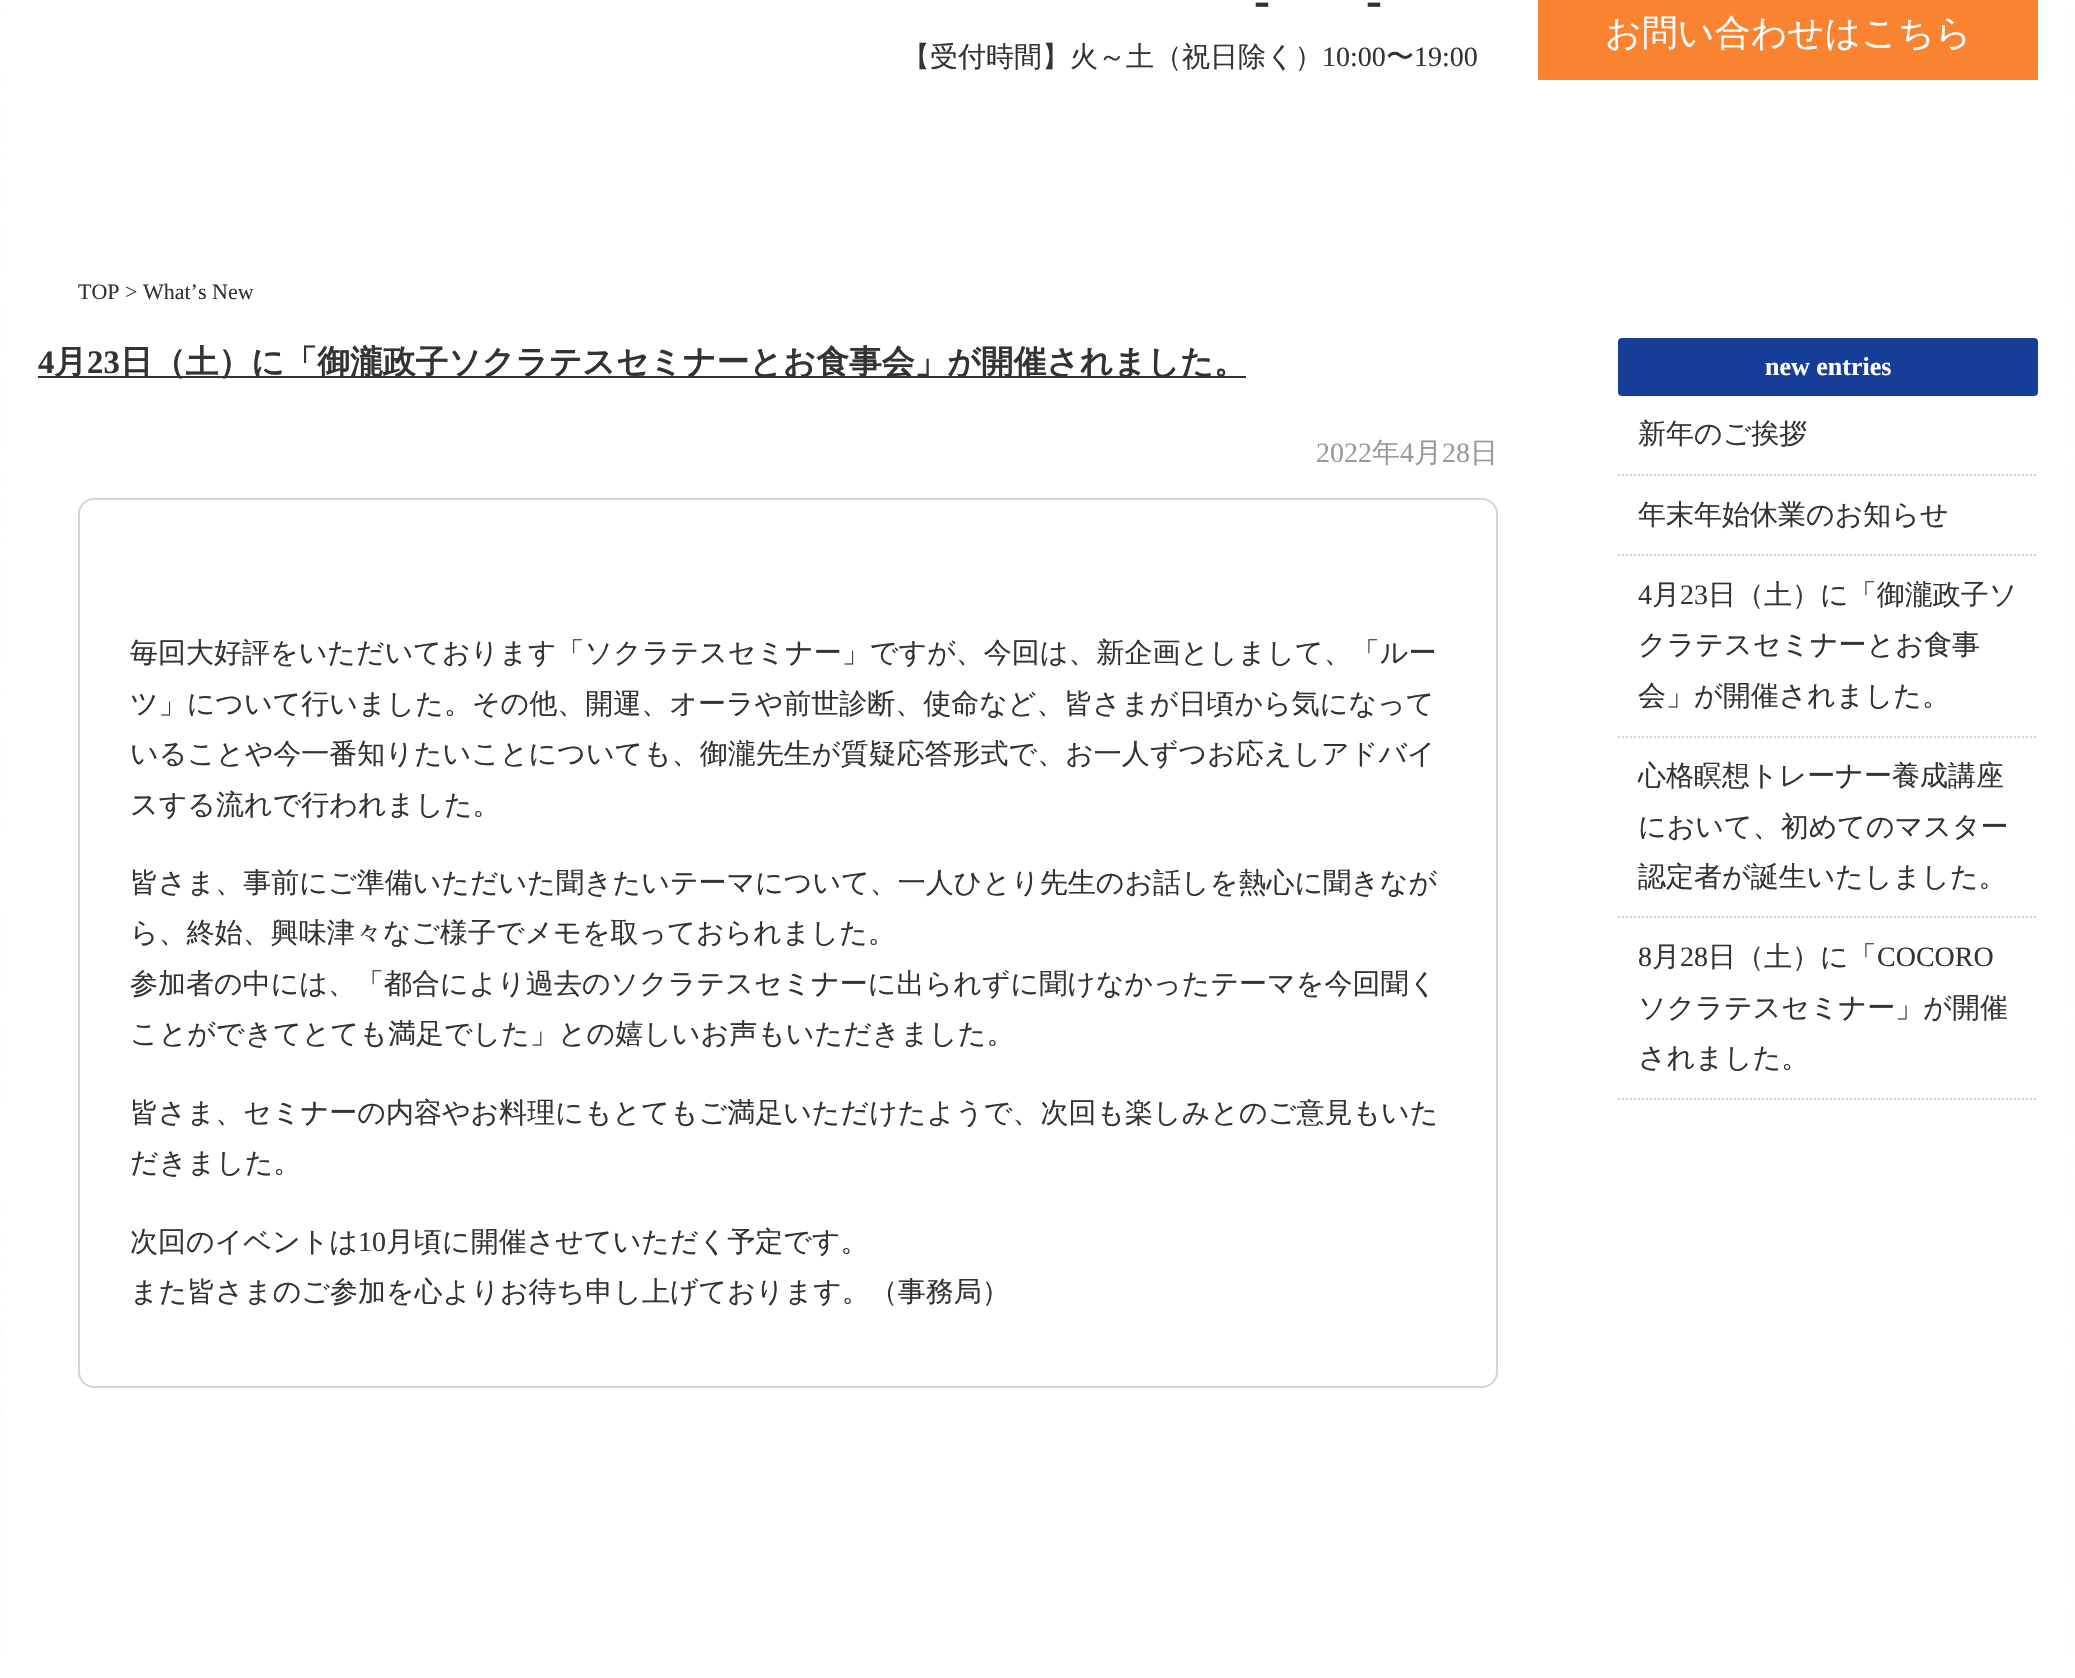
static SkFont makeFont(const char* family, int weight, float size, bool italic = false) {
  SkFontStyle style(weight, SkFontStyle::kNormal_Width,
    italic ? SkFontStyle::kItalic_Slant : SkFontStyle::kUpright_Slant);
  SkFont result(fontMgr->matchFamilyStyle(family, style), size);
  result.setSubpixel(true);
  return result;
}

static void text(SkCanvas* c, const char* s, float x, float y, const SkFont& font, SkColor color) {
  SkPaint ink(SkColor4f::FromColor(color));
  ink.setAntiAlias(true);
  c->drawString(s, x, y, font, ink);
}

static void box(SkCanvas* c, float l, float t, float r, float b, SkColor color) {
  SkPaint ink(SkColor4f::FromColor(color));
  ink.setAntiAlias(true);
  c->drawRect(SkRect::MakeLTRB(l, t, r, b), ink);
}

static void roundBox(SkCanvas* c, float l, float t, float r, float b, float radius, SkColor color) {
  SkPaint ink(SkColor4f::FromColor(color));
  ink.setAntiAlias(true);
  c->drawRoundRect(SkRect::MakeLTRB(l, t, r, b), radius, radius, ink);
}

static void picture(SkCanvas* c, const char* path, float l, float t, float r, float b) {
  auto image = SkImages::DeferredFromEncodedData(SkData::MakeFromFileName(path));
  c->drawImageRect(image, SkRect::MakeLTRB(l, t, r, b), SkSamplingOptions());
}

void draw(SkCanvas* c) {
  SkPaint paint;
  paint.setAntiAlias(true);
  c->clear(0xffffffff);
  picture(c, "img_01.png", 0, 7, 2075, 1650);
  SkFont face1 = makeFont("Liberation Serif", 700, 48);
  text(c, "-", 1254, 16, face1, 0xff333333);
  text(c, "-", 1366, 16, face1, 0xff333333);
  SkFont face2 = makeFont("WenQuanYi Zen Hei", 500, 28);
  text(c, "【受付時間】火～土（祝日除く）", 902, 66, face2, 0xff333333);
  SkFont face3 = makeFont("Liberation Serif", 400, 28);
  text(c, "10:00", 1322, 66, face3, 0xff333333);
  text(c, "〜", 1386, 66, face2, 0xff333333);
  text(c, "19:00", 1414, 66, face3, 0xff333333);
  box(c, 1538, 0, 2038, 80, 0xfffa8332);
  SkFont face4 = makeFont("WenQuanYi Zen Hei", 500, 36);
  text(c, "お問い合わせはこちら", 1605, 45, face4, 0xffffffff);
  SkFont face5 = makeFont("Liberation Serif", 400, 22);
  text(c, "TOP > What’s New", 78, 299, face5, 0xff333333);
  SkFont face6 = makeFont("Liberation Serif", 700, 32.75f);
  text(c, "4", 38, 373, face6, 0xff333333);
  box(c, 38, 376, 1246, 378, 0xff333333);
  SkFont face7 = makeFont("WenQuanYi Zen Hei", 700, 32.75f);
  text(c, "月", 54, 373, face7, 0xff333333);
  text(c, "23", 87, 373, face6, 0xff333333);
  text(c, "日（土）に「御瀧政子ソクラテスセミナーとお食事会」が開催されました。", 120, 373, face7, 0xff333333);
  text(c, "2022", 1316, 462, face3, 0xff999999);
  text(c, "年", 1372, 462, face2, 0xff999999);
  text(c, "4", 1400, 462, face3, 0xff999999);
  text(c, "月", 1414, 462, face2, 0xff999999);
  text(c, "28", 1442, 462, face3, 0xff999999);
  text(c, "日", 1470, 462, face2, 0xff999999);
  paint.setStyle(SkPaint::kStroke_Style);
  paint.setStrokeWidth(2);
  paint.setColor(0xffd4d4d4);
  c->drawRoundRect(SkRect::MakeLTRB(79, 499, 1497, 1387), 15, 15, paint);
  text(c, "毎回大好評をいただいております「ソクラテスセミナー」ですが、今回は、新企画としまして、「ルー", 130, 662, face2, 0xff333333);
  text(c, "ツ」について行いました。その他、開運、オーラや前世診断、使命など、皆さまが日頃から気になって", 130, 713, face2, 0xff333333);
  text(c, "いることや今一番知りたいことについても、御瀧先生が質疑応答形式で、お一人ずつお応えしアドバイ", 130, 763, face2, 0xff333333);
  text(c, "スする流れで行われました。", 130, 814, face2, 0xff333333);
  text(c, "皆さま、事前にご準備いただいた聞きたいテーマについて、一人ひとり先生のお話しを熱心に聞きなが", 130, 892, face2, 0xff333333);
  text(c, "ら、終始、興味津々なご様子でメモを取っておられました。", 130, 942, face2, 0xff333333);
  text(c, "参加者の中には、「都合により過去のソクラテスセミナーに出られずに聞けなかったテーマを今回聞く", 130, 993, face2, 0xff333333);
  text(c, "ことができてとても満足でした」との嬉しいお声もいただきました。", 130, 1043, face2, 0xff333333);
  text(c, "皆さま、セミナーの内容やお料理にもとてもご満足いただけたようで、次回も楽しみとのご意見もいた", 130, 1122, face2, 0xff333333);
  text(c, "だきました。", 130, 1172, face2, 0xff333333);
  text(c, "次回のイベントは", 130, 1251, face2, 0xff333333);
  text(c, "10", 358, 1251, face3, 0xff333333);
  text(c, "月頃に開催させていただく予定です。", 386, 1251, face2, 0xff333333);
  text(c, "また皆さまのご参加を心よりお待ち申し上げております。（事務局）", 130, 1301, face2, 0xff333333);
  roundBox(c, 1618, 338, 2038, 396, 4, 0xff163d97);
  SkFont face8 = makeFont("Liberation Serif", 700, 26);
  text(c, "new entries", 1765, 375, face8, 0xffffffff);
  paint.setPathEffect(SkDashPathEffect::Make({{2, 2}}, 0));
  c->drawPath(SkPathBuilder().moveTo(1618, 475).lineTo(2038, 475).detach(), paint);
  paint.setPathEffect(nullptr);
  text(c, "新年のご挨拶", 1638, 443, face2, 0xff333333);
  paint.setPathEffect(SkDashPathEffect::Make({{2, 2}}, 0));
  c->drawPath(SkPathBuilder().moveTo(1618, 555).lineTo(2038, 555).detach(), paint);
  paint.setPathEffect(nullptr);
  text(c, "年末年始休業のお知らせ", 1638, 524, face2, 0xff333333);
  paint.setPathEffect(SkDashPathEffect::Make({{2, 2}}, 0));
  c->drawPath(SkPathBuilder().moveTo(1618, 737).lineTo(2038, 737).detach(), paint);
  paint.setPathEffect(nullptr);
  text(c, "4", 1638, 604, face3, 0xff333333);
  text(c, "月", 1652, 604, face2, 0xff333333);
  text(c, "23", 1680, 604, face3, 0xff333333);
  text(c, "日（土）に「御瀧政子ソ", 1708, 604, face2, 0xff333333);
  text(c, "クラテスセミナーとお食事", 1638, 654, face2, 0xff333333);
  text(c, "会」が開催されました。", 1638, 705, face2, 0xff333333);
  paint.setPathEffect(SkDashPathEffect::Make({{2, 2}}, 0));
  c->drawPath(SkPathBuilder().moveTo(1618, 917).lineTo(2038, 917).detach(), paint);
  paint.setPathEffect(nullptr);
  text(c, "心格瞑想トレーナー養成講座", 1638, 785, face2, 0xff333333);
  text(c, "において、初めてのマスター", 1638, 836, face2, 0xff333333);
  text(c, "認定者が誕生いたしました。", 1638, 886, face2, 0xff333333);
  paint.setPathEffect(SkDashPathEffect::Make({{2, 2}}, 0));
  c->drawPath(SkPathBuilder().moveTo(1618, 1099).lineTo(2038, 1099).detach(), paint);
  paint.setPathEffect(nullptr);
  text(c, "8", 1638, 966, face3, 0xff333333);
  text(c, "月", 1652, 966, face2, 0xff333333);
  text(c, "28", 1680, 966, face3, 0xff333333);
  text(c, "日（土）に「", 1708, 966, face2, 0xff333333);
  text(c, "COCORO", 1877, 966, face3, 0xff333333);
  text(c, "ソクラテスセミナー」が開催", 1638, 1017, face2, 0xff333333);
  text(c, "されました。", 1638, 1067, face2, 0xff333333);
}
